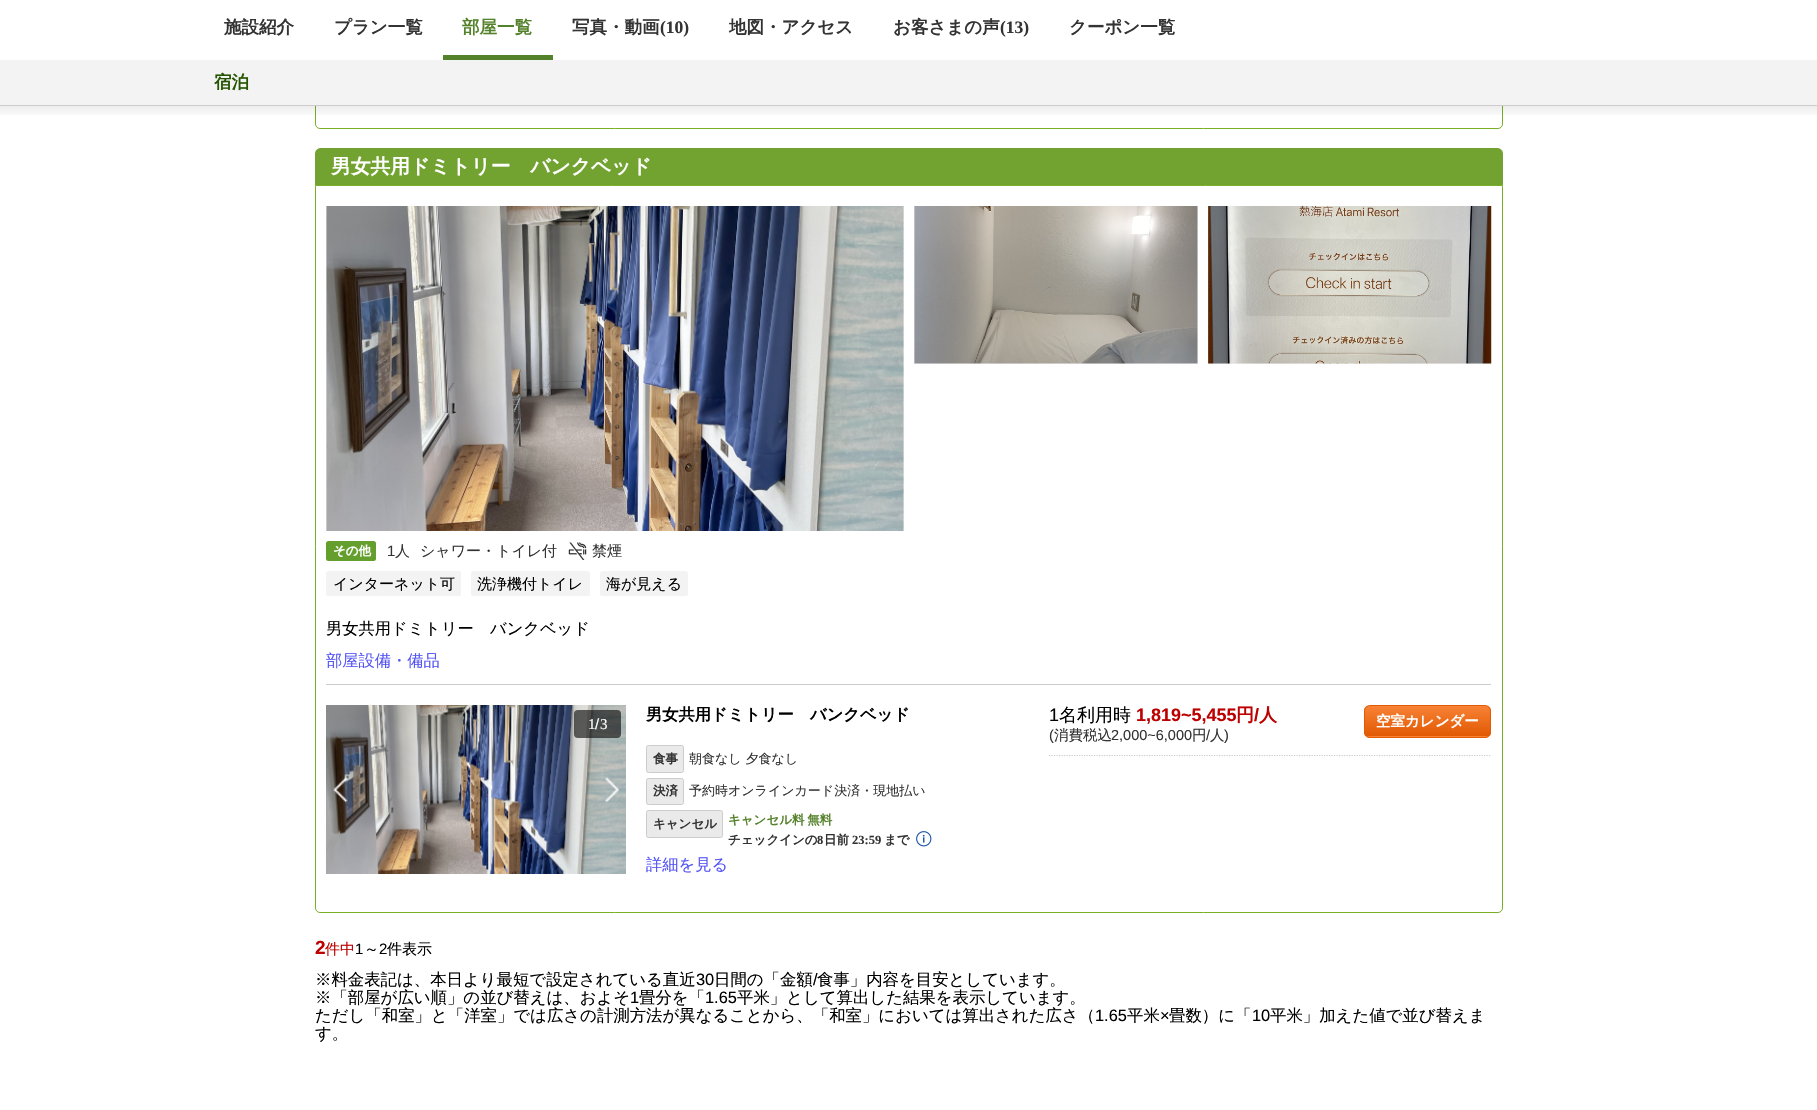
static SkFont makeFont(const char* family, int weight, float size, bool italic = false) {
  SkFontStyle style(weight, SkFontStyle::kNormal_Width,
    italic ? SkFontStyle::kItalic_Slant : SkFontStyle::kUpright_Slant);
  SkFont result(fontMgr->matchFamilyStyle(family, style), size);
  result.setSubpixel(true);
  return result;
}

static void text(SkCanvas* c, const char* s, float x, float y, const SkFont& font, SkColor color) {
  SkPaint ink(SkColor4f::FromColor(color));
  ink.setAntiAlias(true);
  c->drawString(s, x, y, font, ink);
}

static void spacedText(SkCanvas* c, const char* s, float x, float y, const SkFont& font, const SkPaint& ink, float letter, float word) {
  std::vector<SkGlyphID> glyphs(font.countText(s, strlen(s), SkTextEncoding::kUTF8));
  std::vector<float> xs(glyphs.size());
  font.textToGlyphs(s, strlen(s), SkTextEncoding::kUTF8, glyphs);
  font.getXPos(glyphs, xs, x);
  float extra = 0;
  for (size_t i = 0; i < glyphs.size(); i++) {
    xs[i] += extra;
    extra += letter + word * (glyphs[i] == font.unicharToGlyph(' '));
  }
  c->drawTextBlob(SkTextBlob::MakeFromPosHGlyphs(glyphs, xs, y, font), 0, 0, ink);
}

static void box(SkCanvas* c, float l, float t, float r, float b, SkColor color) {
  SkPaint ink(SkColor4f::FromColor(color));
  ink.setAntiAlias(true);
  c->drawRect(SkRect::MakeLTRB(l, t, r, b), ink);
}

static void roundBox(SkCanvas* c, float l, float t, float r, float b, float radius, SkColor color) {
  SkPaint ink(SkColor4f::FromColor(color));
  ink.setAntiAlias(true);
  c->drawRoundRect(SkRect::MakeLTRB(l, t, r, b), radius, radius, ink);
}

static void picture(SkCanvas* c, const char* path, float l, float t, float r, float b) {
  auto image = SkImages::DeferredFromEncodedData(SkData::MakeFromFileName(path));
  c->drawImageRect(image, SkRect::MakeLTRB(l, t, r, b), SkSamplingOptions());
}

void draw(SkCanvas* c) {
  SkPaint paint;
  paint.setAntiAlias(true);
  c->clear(0xffffffff);
  paint.setStyle(SkPaint::kStroke_Style);
  paint.setStrokeWidth(1);
  paint.setColor(0xff77af27);
  c->drawPath(SkPathBuilder().moveTo(315.5f, -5.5f).lineTo(1502.5f, -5.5f).lineTo(1502.5f, 124).cubicTo(1502.5f, 126.5f, 1500.5f, 128.5f, 1498, 128.5f).lineTo(320, 128.5f).cubicTo(317.5f, 128.5f, 315.5f, 126.5f, 315.5f, 124).close().detach(), paint);
  box(c, 315, 0, 1503, 60, 0xffffffff);
  SkFont face1 = makeFont("WenQuanYi Zen Hei", 700, 17.5f);
  text(c, "施設紹介", 224, 33, face1, 0xff333333);
  text(c, "プラン一覧", 334, 33, face1, 0xff333333);
  box(c, 443, 55, 553, 60, 0xff54822b);
  text(c, "部屋一覧", 462, 33, face1, 0xff54822b);
  text(c, "写真・動画", 572, 33, face1, 0xff333333);
  SkFont face2 = makeFont("Liberation Serif", 700, 17.5f);
  text(c, "(10)", 660, 33, face2, 0xff333333);
  text(c, "地図・アクセス", 729, 33, face1, 0xff333333);
  text(c, "お客さまの声", 893, 33, face1, 0xff333333);
  text(c, "(13)", 1000, 33, face2, 0xff333333);
  text(c, "クーポン一覧", 1069, 33, face1, 0xff333333);
  paint.setStyle(SkPaint::kFill_Style);
  {
    const SkColor colors[] = {0x00000000, 0x12000000};
    const float stops[] = {0, 1};
    const SkPoint ends[] = {{909, 119}, {909, 106}};
    paint.setShader(SkGradientShader::MakeLinear(ends, colors, stops, 2, SkTileMode::kClamp));
    paint.setAlpha(255);
  }
  c->drawRect(SkRect::MakeLTRB(0, 106, 1817, 115), paint);
  box(c, 0, 60, 1817, 105, 0xfff3f3f3);
  box(c, 0, 105, 1817, 106, 0xffcccccc);
  text(c, "宿泊", 214, 88, face1, 0xff255500);
  paint.setShader(nullptr);
  paint.setColor(0xff72a331);
  c->drawPath(SkPathBuilder().moveTo(321, 148).lineTo(1497, 148).cubicTo(1500.5f, 148, 1503, 150.5f, 1503, 154).lineTo(1503, 185).lineTo(315, 185).lineTo(315, 154).cubicTo(315, 150.5f, 317.5f, 148, 321, 148).close().detach(), paint);
  SkFont face3 = makeFont("WenQuanYi Zen Hei", 700, 19.75f);
  text(c, "男女共用ドミトリー　バンクベッド", 331, 173, face3, 0xffffffff);
  paint.setStyle(SkPaint::kStroke_Style);
  paint.setColor(0xff77af27);
  c->drawPath(SkPathBuilder().moveTo(315.5f, 185.5f).lineTo(1502.5f, 185.5f).lineTo(1502.5f, 908).cubicTo(1502.5f, 910.5f, 1500.5f, 912.5f, 1498, 912.5f).lineTo(320, 912.5f).cubicTo(317.5f, 912.5f, 315.5f, 910.5f, 315.5f, 908).close().detach(), paint);
  box(c, 326, 206, 904, 531, 0xfff3f3f3);
  picture(c, "img_01.png", 326, 206, 904, 531);
  box(c, 914, 206, 1198, 364, 0xfff3f3f3);
  picture(c, "img_02.png", 914, 206, 1198, 364);
  box(c, 1208, 206, 1491, 364, 0xfff3f3f3);
  picture(c, "img_03.png", 1208, 206, 1492, 364);
  roundBox(c, 326, 541, 376, 561, 2.5f, 0xff649e2c);
  SkFont face4 = makeFont("WenQuanYi Zen Hei", 700, 12.5f);
  text(c, "その他", 333, 555, face4, 0xffffffff);
  SkFont face5 = makeFont("Liberation Sans", 400, 15);
  text(c, "1", 387, 556, face5, 0xff333333);
  SkFont face6 = makeFont("WenQuanYi Zen Hei", 500, 15);
  text(c, "人", 395, 556, face6, 0xff333333);
  text(c, "シャワー・トイレ付", 420, 556, face6, 0xff333333);
  picture(c, "img_04.png", 568, 542, 587, 560);
  text(c, "禁煙", 592, 556, face6, 0xff333333);
  roundBox(c, 326, 571, 461, 596, 2.5f, 0xfff3f3f3);
  text(c, "インターネット可", 333, 589, face6, 0xff000000);
  roundBox(c, 471, 571, 590, 596, 2.5f, 0xfff3f3f3);
  text(c, "洗浄機付トイレ", 477, 589, face6, 0xff000000);
  roundBox(c, 600, 571, 688, 596, 2.5f, 0xfff3f3f3);
  text(c, "海が見える", 606, 589, face6, 0xff000000);
  SkFont face7 = makeFont("WenQuanYi Zen Hei", 500, 16.25f);
  text(c, "男女共用ドミトリー　バンクベッド", 326, 634, face7, 0xff000000);
  text(c, "部屋設備・備品", 326, 666, face7, 0xff5454f6);
  box(c, 326, 684, 1491, 685, 0xffcccccc);
  picture(c, "img_05.png", 326, 705, 626, 874);
  roundBox(c, 574, 710, 621, 738, 4, 0x99000000);
  SkFont face8 = makeFont("Liberation Serif", 400, 15);
  text(c, "1", 588, 729, face8, 0xffffffff);
  text(c, "/", 595, 729, face5, 0xffffffff);
  text(c, "3", 600, 729, face8, 0xffffffff);
  picture(c, "img_06.png", 333, 777, 348, 803);
  picture(c, "img_07.png", 605, 777, 619, 803);
  SkFont face9 = makeFont("WenQuanYi Zen Hei", 700, 16.25f);
  text(c, "男女共用ドミトリー　バンクベッド", 646, 720, face9, 0xff000000);
  paint.setStyle(SkPaint::kFill_Style);
  paint.setColor(0xffeaeaea);
  c->drawRoundRect(SkRect::MakeLTRB(646.5f, 745.5f, 683.5f, 772.5f), 2, 2, paint);
  paint.setStyle(SkPaint::kStroke_Style);
  paint.setColor(0xffcccccc);
  c->drawRoundRect(SkRect::MakeLTRB(646.5f, 745.5f, 683.5f, 772.5f), 2, 2, paint);
  text(c, "食事", 653, 763, face4, 0xff333333);
  SkFont face10 = makeFont("WenQuanYi Zen Hei", 500, 13);
  text(c, "朝食なし 夕食なし", 689, 763, face10, 0xff333333);
  paint.setStyle(SkPaint::kFill_Style);
  paint.setColor(0xffeaeaea);
  c->drawRoundRect(SkRect::MakeLTRB(646.5f, 778.5f, 683.5f, 804.5f), 2, 2, paint);
  paint.setStyle(SkPaint::kStroke_Style);
  paint.setColor(0xffcccccc);
  c->drawRoundRect(SkRect::MakeLTRB(646.5f, 778.5f, 683.5f, 804.5f), 2, 2, paint);
  text(c, "決済", 653, 795, face4, 0xff333333);
  text(c, "予約時オンラインカード決済・現地払い", 689, 795, face10, 0xff333333);
  paint.setStyle(SkPaint::kFill_Style);
  paint.setColor(0xffeaeaea);
  c->drawRoundRect(SkRect::MakeLTRB(646.5f, 810.5f, 722.5f, 837.5f), 2, 2, paint);
  paint.setStyle(SkPaint::kStroke_Style);
  paint.setColor(0xffcccccc);
  c->drawRoundRect(SkRect::MakeLTRB(646.5f, 810.5f, 722.5f, 837.5f), 2, 2, paint);
  text(c, "キャンセル", 653, 828, face4, 0xff333333);
  paint.setStyle(SkPaint::kFill_Style);
  paint.setColor(0xff54822b);
  spacedText(c, "キャンセル料 無料", 728, 824, face4, paint, 0, -1);
  text(c, "チェックインの", 728, 844, face4, 0xff333333);
  SkFont face11 = makeFont("Liberation Serif", 700, 12.5f);
  text(c, "8", 817, 844, face11, 0xff333333);
  text(c, "日前", 824, 844, face4, 0xff333333);
  text(c, "23:59", 852, 844, face11, 0xff333333);
  text(c, "まで", 884, 844, face4, 0xff333333);
  picture(c, "img_08.png", 916, 831, 932, 847);
  text(c, "詳細を見る", 646, 870, face7, 0xff5454f6);
  paint.setStyle(SkPaint::kStroke_Style);
  paint.setStrokeWidth(1.2f);
  paint.setColor(0xffcccccc);
  paint.setPathEffect(SkDashPathEffect::Make({{1.25f, 1.25f}}, 0));
  c->drawPath(SkPathBuilder().moveTo(1049, 755.5f).lineTo(1491, 755.5f).detach(), paint);
  paint.setPathEffect(nullptr);
  SkFont face12 = makeFont("Liberation Sans", 700, 18);
  text(c, "1,819~5,455", 1136, 721, face12, 0xffbd0000);
  SkFont face13 = makeFont("WenQuanYi Zen Hei", 700, 18);
  text(c, "円", 1236, 721, face13, 0xffbd0000);
  text(c, "/", 1254, 721, face12, 0xffbd0000);
  text(c, "人", 1259, 721, face13, 0xffbd0000);
  SkFont face14 = makeFont("Liberation Sans", 400, 14.5f);
  text(c, "(", 1049, 740, face14, 0xff333333);
  SkFont face15 = makeFont("WenQuanYi Zen Hei", 500, 14.5f);
  text(c, "消費税込", 1054, 740, face15, 0xff333333);
  text(c, "2,000~6,000", 1111, 740, face14, 0xff333333);
  text(c, "円", 1192, 740, face15, 0xff333333);
  text(c, "/", 1206, 740, face14, 0xff333333);
  text(c, "人", 1210, 740, face15, 0xff333333);
  text(c, ")", 1224, 740, face14, 0xff333333);
  SkFont face16 = makeFont("Liberation Sans", 400, 18);
  text(c, "1", 1049, 721, face16, 0xff000000);
  SkFont face17 = makeFont("WenQuanYi Zen Hei", 500, 18);
  text(c, "名利用時", 1059, 721, face17, 0xff000000);
  c->save();
  c->clipPath(SkPathBuilder().moveTo(1370, 705).lineTo(1485, 705).cubicTo(1488.5f, 705, 1491, 707.5f, 1491, 711).lineTo(1491, 732).cubicTo(1491, 735.5f, 1488.5f, 738, 1485, 738).lineTo(1370, 738).cubicTo(1366.5f, 738, 1364, 735.5f, 1364, 732).lineTo(1364, 711).cubicTo(1364, 707.5f, 1366.5f, 705, 1370, 705).close().detach(), true);
  paint.setStyle(SkPaint::kFill_Style);
  {
    const SkColor colors[] = {0xfff88235, 0xffe15903};
    const float stops[] = {0, 1};
    const SkPoint ends[] = {{1428, 706}, {1428, 736}};
    paint.setShader(SkGradientShader::MakeLinear(ends, colors, stops, 2, SkTileMode::kClamp));
    paint.setAlpha(255);
  }
  c->drawRect(SkRect::MakeLTRB(1364, 706, 1491, 736), paint);
  {
    const SkColor colors[] = {0xfff88235, 0xffe15903};
    const float stops[] = {0, 1};
    const SkPoint ends[] = {{1428, 736}, {1428, 766}};
    paint.setShader(SkGradientShader::MakeLinear(ends, colors, stops, 2, SkTileMode::kClamp));
    paint.setAlpha(255);
  }
  c->drawRect(SkRect::MakeLTRB(1364, 736, 1491, 738), paint);
  c->restore();
  paint.setStyle(SkPaint::kStroke_Style);
  paint.setStrokeWidth(1);
  paint.setShader(nullptr);
  paint.setColor(0xffe25b05);
  c->drawRoundRect(SkRect::MakeLTRB(1364.5f, 705.5f, 1490.5f, 737.5f), 5.5f, 5.5f, paint);
  SkFont face18 = makeFont("WenQuanYi Zen Hei", 700, 14.5f);
  text(c, "空室カレンダー", 1376, 726, face18, 0xffffffff);
  SkFont face19 = makeFont("Liberation Sans", 700, 19);
  text(c, "2", 315, 954, face19, 0xffbd0000);
  text(c, "件中", 325, 954, face6, 0xffbd0000);
  text(c, "1", 355, 954, face5, 0xff000000);
  text(c, "～", 364, 954, face6, 0xff000000);
  text(c, "2", 379, 954, face5, 0xff000000);
  text(c, "件表示", 387, 954, face6, 0xff000000);
  SkFont face20 = makeFont("WenQuanYi Zen Hei", 500, 16.4f);
  text(c, "※料金表記は、本日より最短で設定されている直近", 315, 985, face20, 0xff000000);
  SkFont face21 = makeFont("Liberation Sans", 400, 16.4f);
  text(c, "30", 696, 985, face21, 0xff000000);
  text(c, "日間の「金額", 714, 985, face20, 0xff000000);
  text(c, "/", 813, 985, face21, 0xff000000);
  text(c, "食事」内容を目安としています。", 817, 985, face20, 0xff000000);
  text(c, "※「部屋が広い順」の並び替えは、およそ", 315, 1003, face20, 0xff000000);
  text(c, "1", 630, 1003, face21, 0xff000000);
  text(c, "畳分を「", 639, 1003, face20, 0xff000000);
  text(c, "1.65", 705, 1003, face21, 0xff000000);
  text(c, "平米」として算出した結果を表示しています。", 737, 1003, face20, 0xff000000);
  text(c, "ただし「和室」と「洋室」では広さの計測方法が異なることから、「和室」においては算出された広さ（", 315, 1021, face20, 0xff000000);
  text(c, "1.65", 1095, 1021, face21, 0xff000000);
  text(c, "平米", 1127, 1021, face20, 0xff000000);
  text(c, "×", 1160, 1021, face21, 0xff000000);
  text(c, "畳数）に「", 1169, 1021, face20, 0xff000000);
  text(c, "10", 1252, 1021, face21, 0xff000000);
  text(c, "平米」加えた値で並び替えま", 1270, 1021, face20, 0xff000000);
  text(c, "す。", 315, 1039, face20, 0xff000000);
}
